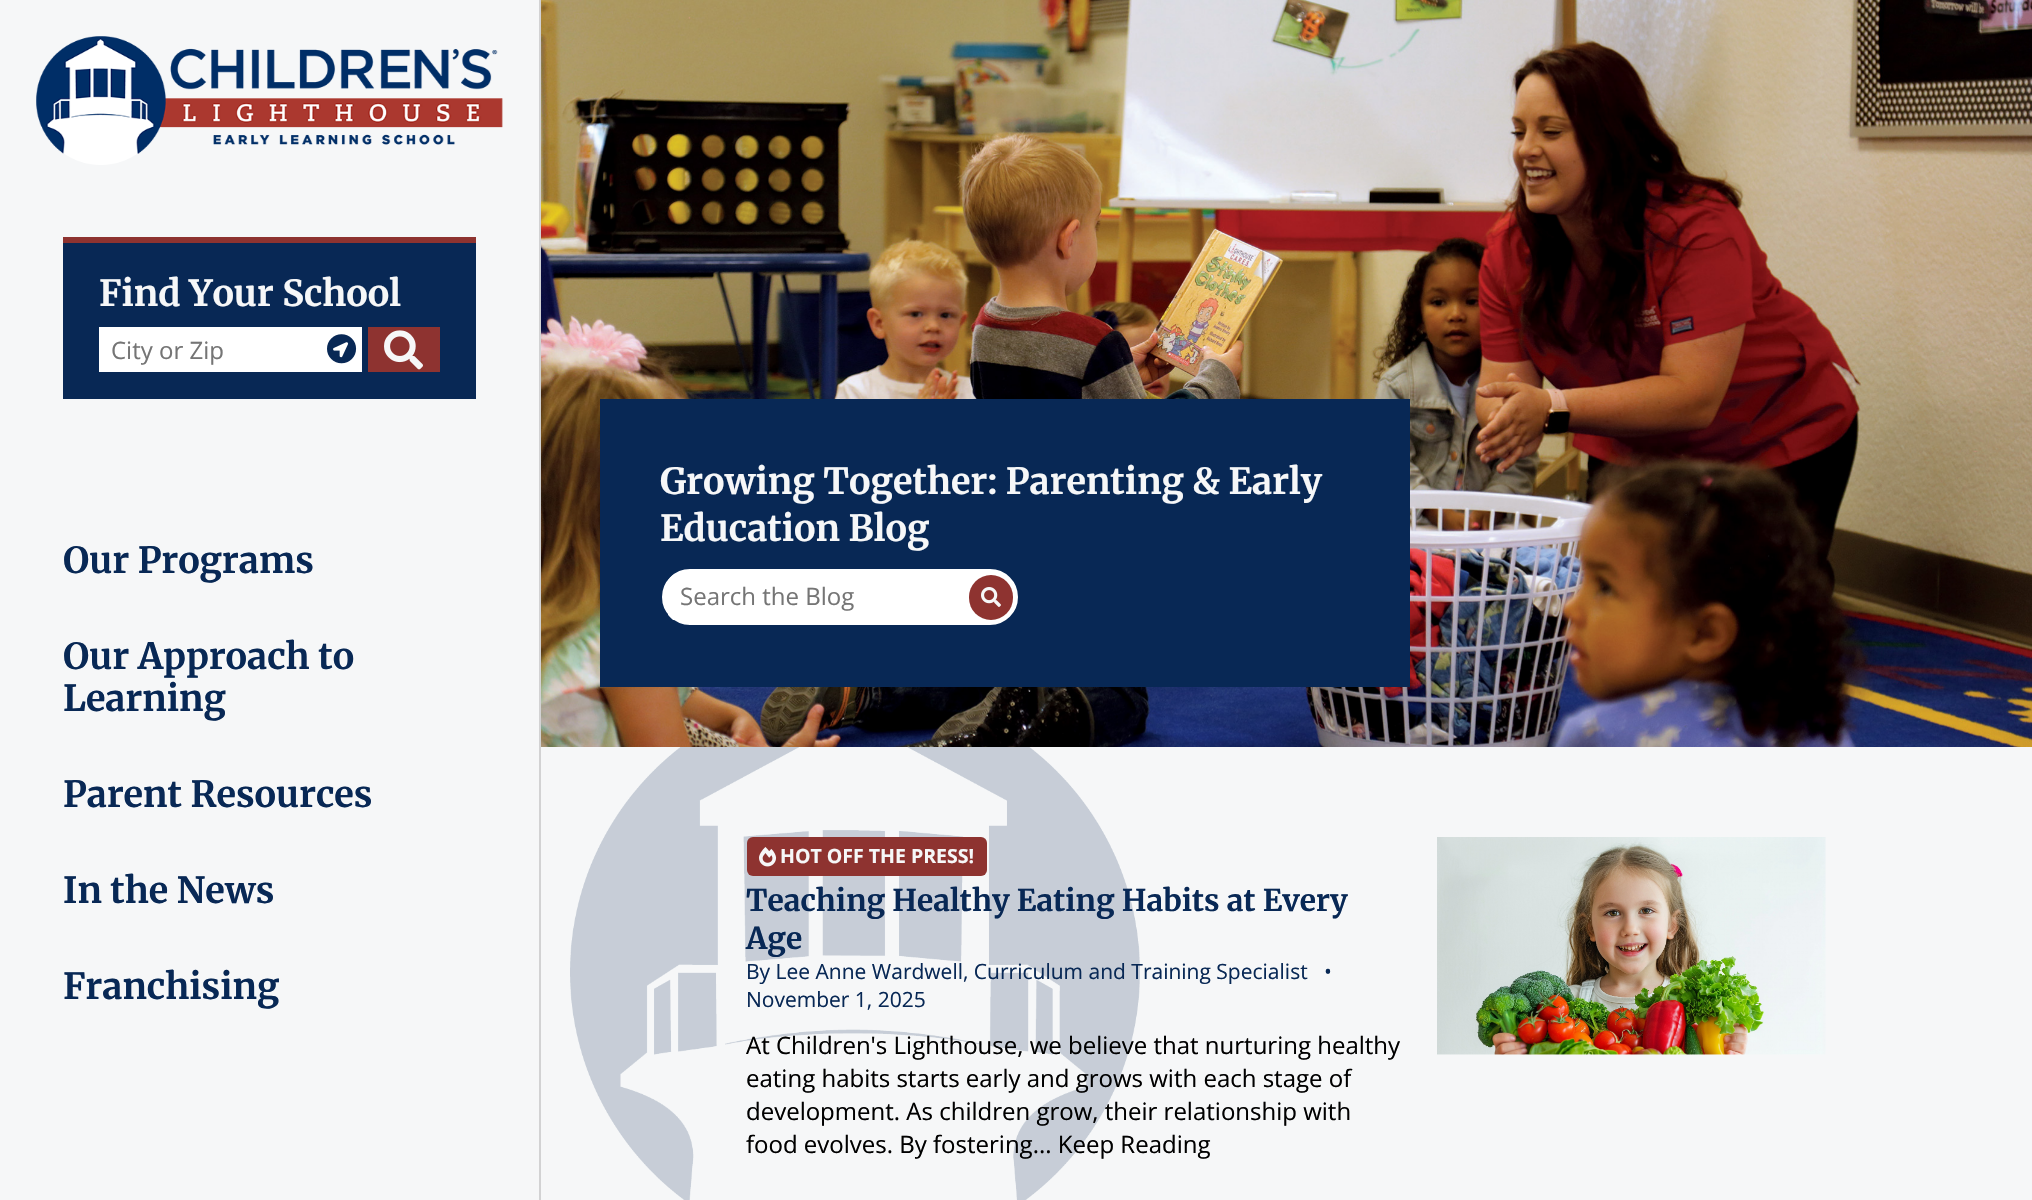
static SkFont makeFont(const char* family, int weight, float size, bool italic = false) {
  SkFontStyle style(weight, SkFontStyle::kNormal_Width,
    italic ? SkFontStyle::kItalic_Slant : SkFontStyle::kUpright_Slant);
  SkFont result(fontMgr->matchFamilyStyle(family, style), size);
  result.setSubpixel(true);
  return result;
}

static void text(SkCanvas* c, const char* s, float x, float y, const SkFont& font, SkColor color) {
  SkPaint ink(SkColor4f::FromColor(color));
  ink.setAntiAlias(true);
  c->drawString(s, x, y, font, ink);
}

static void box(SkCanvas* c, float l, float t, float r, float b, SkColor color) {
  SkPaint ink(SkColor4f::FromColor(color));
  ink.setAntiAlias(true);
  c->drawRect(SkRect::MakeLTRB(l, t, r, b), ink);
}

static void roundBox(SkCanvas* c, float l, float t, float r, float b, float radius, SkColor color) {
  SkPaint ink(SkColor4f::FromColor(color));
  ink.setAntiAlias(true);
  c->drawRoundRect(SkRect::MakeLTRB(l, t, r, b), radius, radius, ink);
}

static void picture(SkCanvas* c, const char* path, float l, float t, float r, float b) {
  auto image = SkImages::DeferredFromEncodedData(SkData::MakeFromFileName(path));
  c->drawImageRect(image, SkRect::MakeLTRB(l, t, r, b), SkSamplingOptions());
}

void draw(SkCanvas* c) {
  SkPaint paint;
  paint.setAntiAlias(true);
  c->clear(0xfff6f7f8);
  box(c, 539, 0, 541, 1200, 0xffd2d2d3);
  picture(c, "img_01.png", 36, 36, 503, 165);
  box(c, 63, 243, 476, 399, 0xff082855);
  box(c, 63, 237, 476, 243, 0xff8e3330);
  SkFont face1 = makeFont("Merriweather", 300, 36);
  text(c, "Find Your School", 99, 306, face1, 0xfff6f7f8);
  box(c, 99, 327, 362, 372, 0xffffffff);
  SkFont face2 = makeFont("Open Sans", 400, 24);
  text(c, "City or Zip", 111, 359, face2, 0xff757575);
  picture(c, "img_02.png", 327, 334, 357, 364);
  box(c, 368, 327, 440, 372, 0xff8e3330);
  picture(c, "img_03.png", 384, 330, 423, 370);
  text(c, "Our Programs", 63, 573, face1, 0xff082855);
  text(c, "Our Approach to", 63, 669, face1, 0xff082855);
  text(c, "Learning", 63, 711, face1, 0xff082855);
  text(c, "Parent Resources", 63, 807, face1, 0xff082855);
  text(c, "In the News", 63, 903, face1, 0xff082855);
  text(c, "Franchising", 63, 999, face1, 0xff082855);
  picture(c, "img_04.png", 541, 0, 2032, 747);
  box(c, 600, 399, 1410, 687, 0xff082855);
  text(c, "Growing Together: Parenting & Early", 660, 494, face1, 0xfff6f7f8);
  text(c, "Education Blog", 660, 541, face1, 0xfff6f7f8);
  paint.setColor(0xffffffff);
  c->drawRoundRect(SkRect::MakeLTRB(661, 568, 1019, 626), 29, 29, paint);
  paint.setStyle(SkPaint::kStroke_Style);
  paint.setStrokeWidth(2);
  paint.setColor(0xff082855);
  c->drawRoundRect(SkRect::MakeLTRB(661, 568, 1019, 626), 29, 29, paint);
  c->save();
  c->clipPath(SkPathBuilder().moveTo(690.5f, 569).lineTo(990.5f, 569).cubicTo(1006, 569, 1019, 582, 1019, 597.5f).cubicTo(1019, 613, 1006, 626, 990.5f, 626).lineTo(690.5f, 626).cubicTo(675, 626, 662, 613, 662, 597.5f).cubicTo(662, 582, 675, 569, 690.5f, 569).close().detach(), true);
  box(c, 668, 575, 960, 620, 0xffffffff);
  c->restore();
  text(c, "Search the Blog", 680, 605, face2, 0xff757575);
  roundBox(c, 969, 575, 1013, 620, 22, 0xff8e3330);
  picture(c, "img_05.png", 981, 587, 1001, 607);
  picture(c, "img_06.png", 570, 747, 1140, 1200);
  roundBox(c, 747, 837, 987, 876, 6, 0xff8e3330);
  picture(c, "img_07.png", 759, 847, 777, 867);
  SkFont face3 = makeFont("Open Sans", 700, 19.5f);
  text(c, "HOT OFF THE PRESS!", 780, 863, face3, 0xfff6f7f8);
  SkFont face4 = makeFont("Merriweather", 300, 30);
  text(c, "Teaching Healthy Eating Habits at Every", 746, 911, face4, 0xff082855);
  text(c, "Age", 746, 949, face4, 0xff082855);
  SkFont face5 = makeFont("Open Sans", 400, 21);
  text(c, "By Lee Anne Wardwell, Curriculum and Training Specialist   •", 746, 979, face5, 0xff082855);
  text(c, "November 1, 2025", 746, 1007, face5, 0xff082855);
  text(c, "At Children's Lighthouse, we believe that nurturing healthy", 746, 1054, face2, 0xff000000);
  text(c, "eating habits starts early and grows with each stage of", 746, 1087, face2, 0xff000000);
  text(c, "development. As children grow, their relationship with", 746, 1120, face2, 0xff000000);
  text(c, "food evolves. By fostering... Keep Reading", 746, 1153, face2, 0xff000000);
  picture(c, "img_08.png", 1437, 837, 1826, 1055);
}
